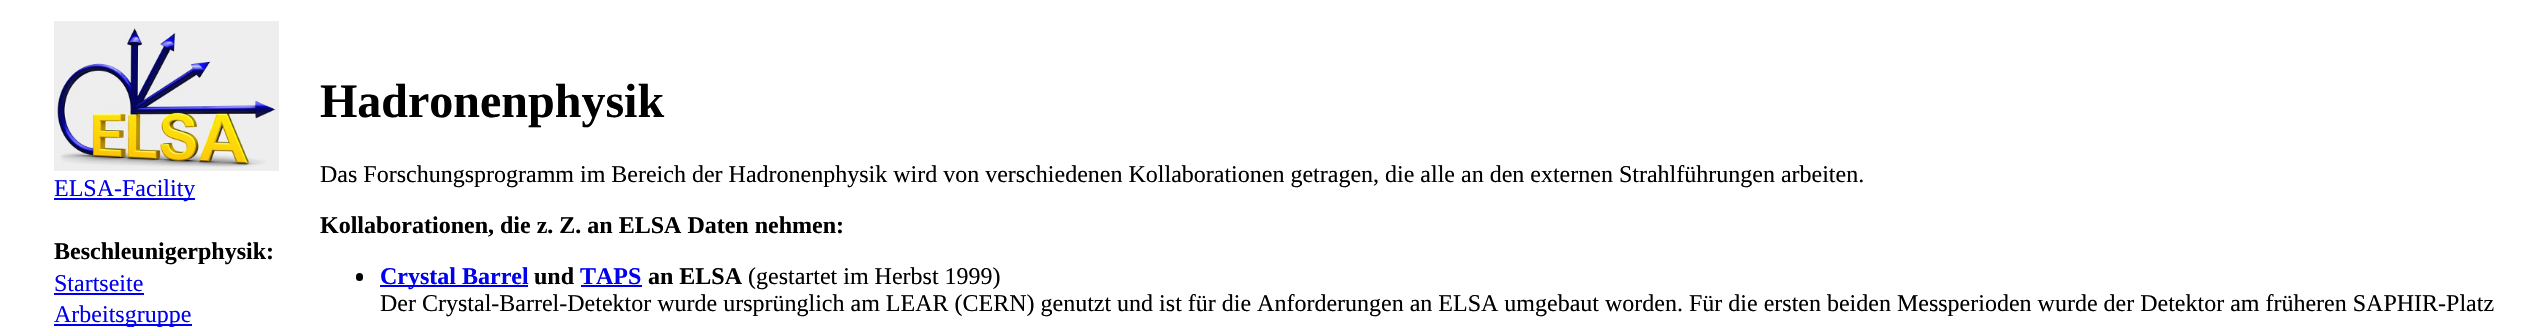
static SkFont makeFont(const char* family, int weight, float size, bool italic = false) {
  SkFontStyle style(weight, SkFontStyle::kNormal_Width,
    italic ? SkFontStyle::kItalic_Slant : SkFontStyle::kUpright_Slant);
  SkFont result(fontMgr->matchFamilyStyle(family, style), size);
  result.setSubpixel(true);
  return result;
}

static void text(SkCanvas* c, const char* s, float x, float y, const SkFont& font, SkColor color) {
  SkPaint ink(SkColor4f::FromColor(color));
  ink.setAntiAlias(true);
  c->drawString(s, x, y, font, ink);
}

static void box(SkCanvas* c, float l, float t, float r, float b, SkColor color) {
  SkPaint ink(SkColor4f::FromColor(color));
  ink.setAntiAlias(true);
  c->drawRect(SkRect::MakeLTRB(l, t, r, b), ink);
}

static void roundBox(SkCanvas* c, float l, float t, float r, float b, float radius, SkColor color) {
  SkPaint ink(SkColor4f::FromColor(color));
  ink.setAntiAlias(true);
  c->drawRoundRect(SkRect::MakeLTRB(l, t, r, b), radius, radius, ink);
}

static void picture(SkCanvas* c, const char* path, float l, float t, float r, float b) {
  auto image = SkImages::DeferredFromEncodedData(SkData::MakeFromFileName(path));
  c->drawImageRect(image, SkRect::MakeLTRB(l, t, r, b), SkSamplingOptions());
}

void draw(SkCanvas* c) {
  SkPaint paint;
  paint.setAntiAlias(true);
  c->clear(0xffffffff);
  picture(c, "img_01.png", 54, 21, 279, 171);
  box(c, 54, 198, 195, 200, 0xff0000ee);
  SkFont face1 = makeFont("Liberation Serif", 400, 24);
  text(c, "ELSA-Facility", 54, 196, face1, 0xff0000ee);
  SkFont face2 = makeFont("Liberation Serif", 700, 24);
  text(c, "Beschleunigerphysik:", 54, 259, face2, 0xff000000);
  text(c, "Startseite", 54, 291, face1, 0xff0000ee);
  box(c, 54, 293, 144, 295, 0xff0000ee);
  box(c, 54, 324, 192, 326, 0xff0000ee);
  text(c, "Arbeitsgruppe", 54, 322, face1, 0xff0000ee);
  SkFont face3 = makeFont("Liberation Serif", 700, 48);
  text(c, "Hadronenphysik", 320, 117, face3, 0xff000000);
  text(c, "Das Forschungsprogramm im Bereich der Hadronenphysik wird von verschiedenen Kollaborationen getragen, die alle an den externen Strahlführungen arbeiten.", 320, 182, face1, 0xff000000);
  text(c, "Kollaborationen, die z. Z. an ELSA Daten nehmen:", 320, 233, face2, 0xff000000);
  roundBox(c, 356, 273, 363, 281, 3.5f, 0xff000000);
  box(c, 380, 285, 528, 287, 0xff0000ee);
  text(c, "Crystal Barrel", 380, 284, face2, 0xff0000ee);
  text(c, "und", 534, 284, face2, 0xff000000);
  text(c, "TAPS", 580, 284, face2, 0xff0000ee);
  box(c, 581, 285, 642, 287, 0xff0000ee);
  text(c, "an ELSA", 648, 284, face2, 0xff000000);
  text(c, "(gestartet im Herbst 1999)", 748, 284, face1, 0xff000000);
  text(c, "Der Crystal-Barrel-Detektor wurde ursprünglich am LEAR (CERN) genutzt und ist für die Anforderungen an ELSA umgebaut worden. Für die ersten beiden Messperioden wurde der Detektor am früheren SAPHIR-Platz", 380, 311, face1, 0xff000000);
}
